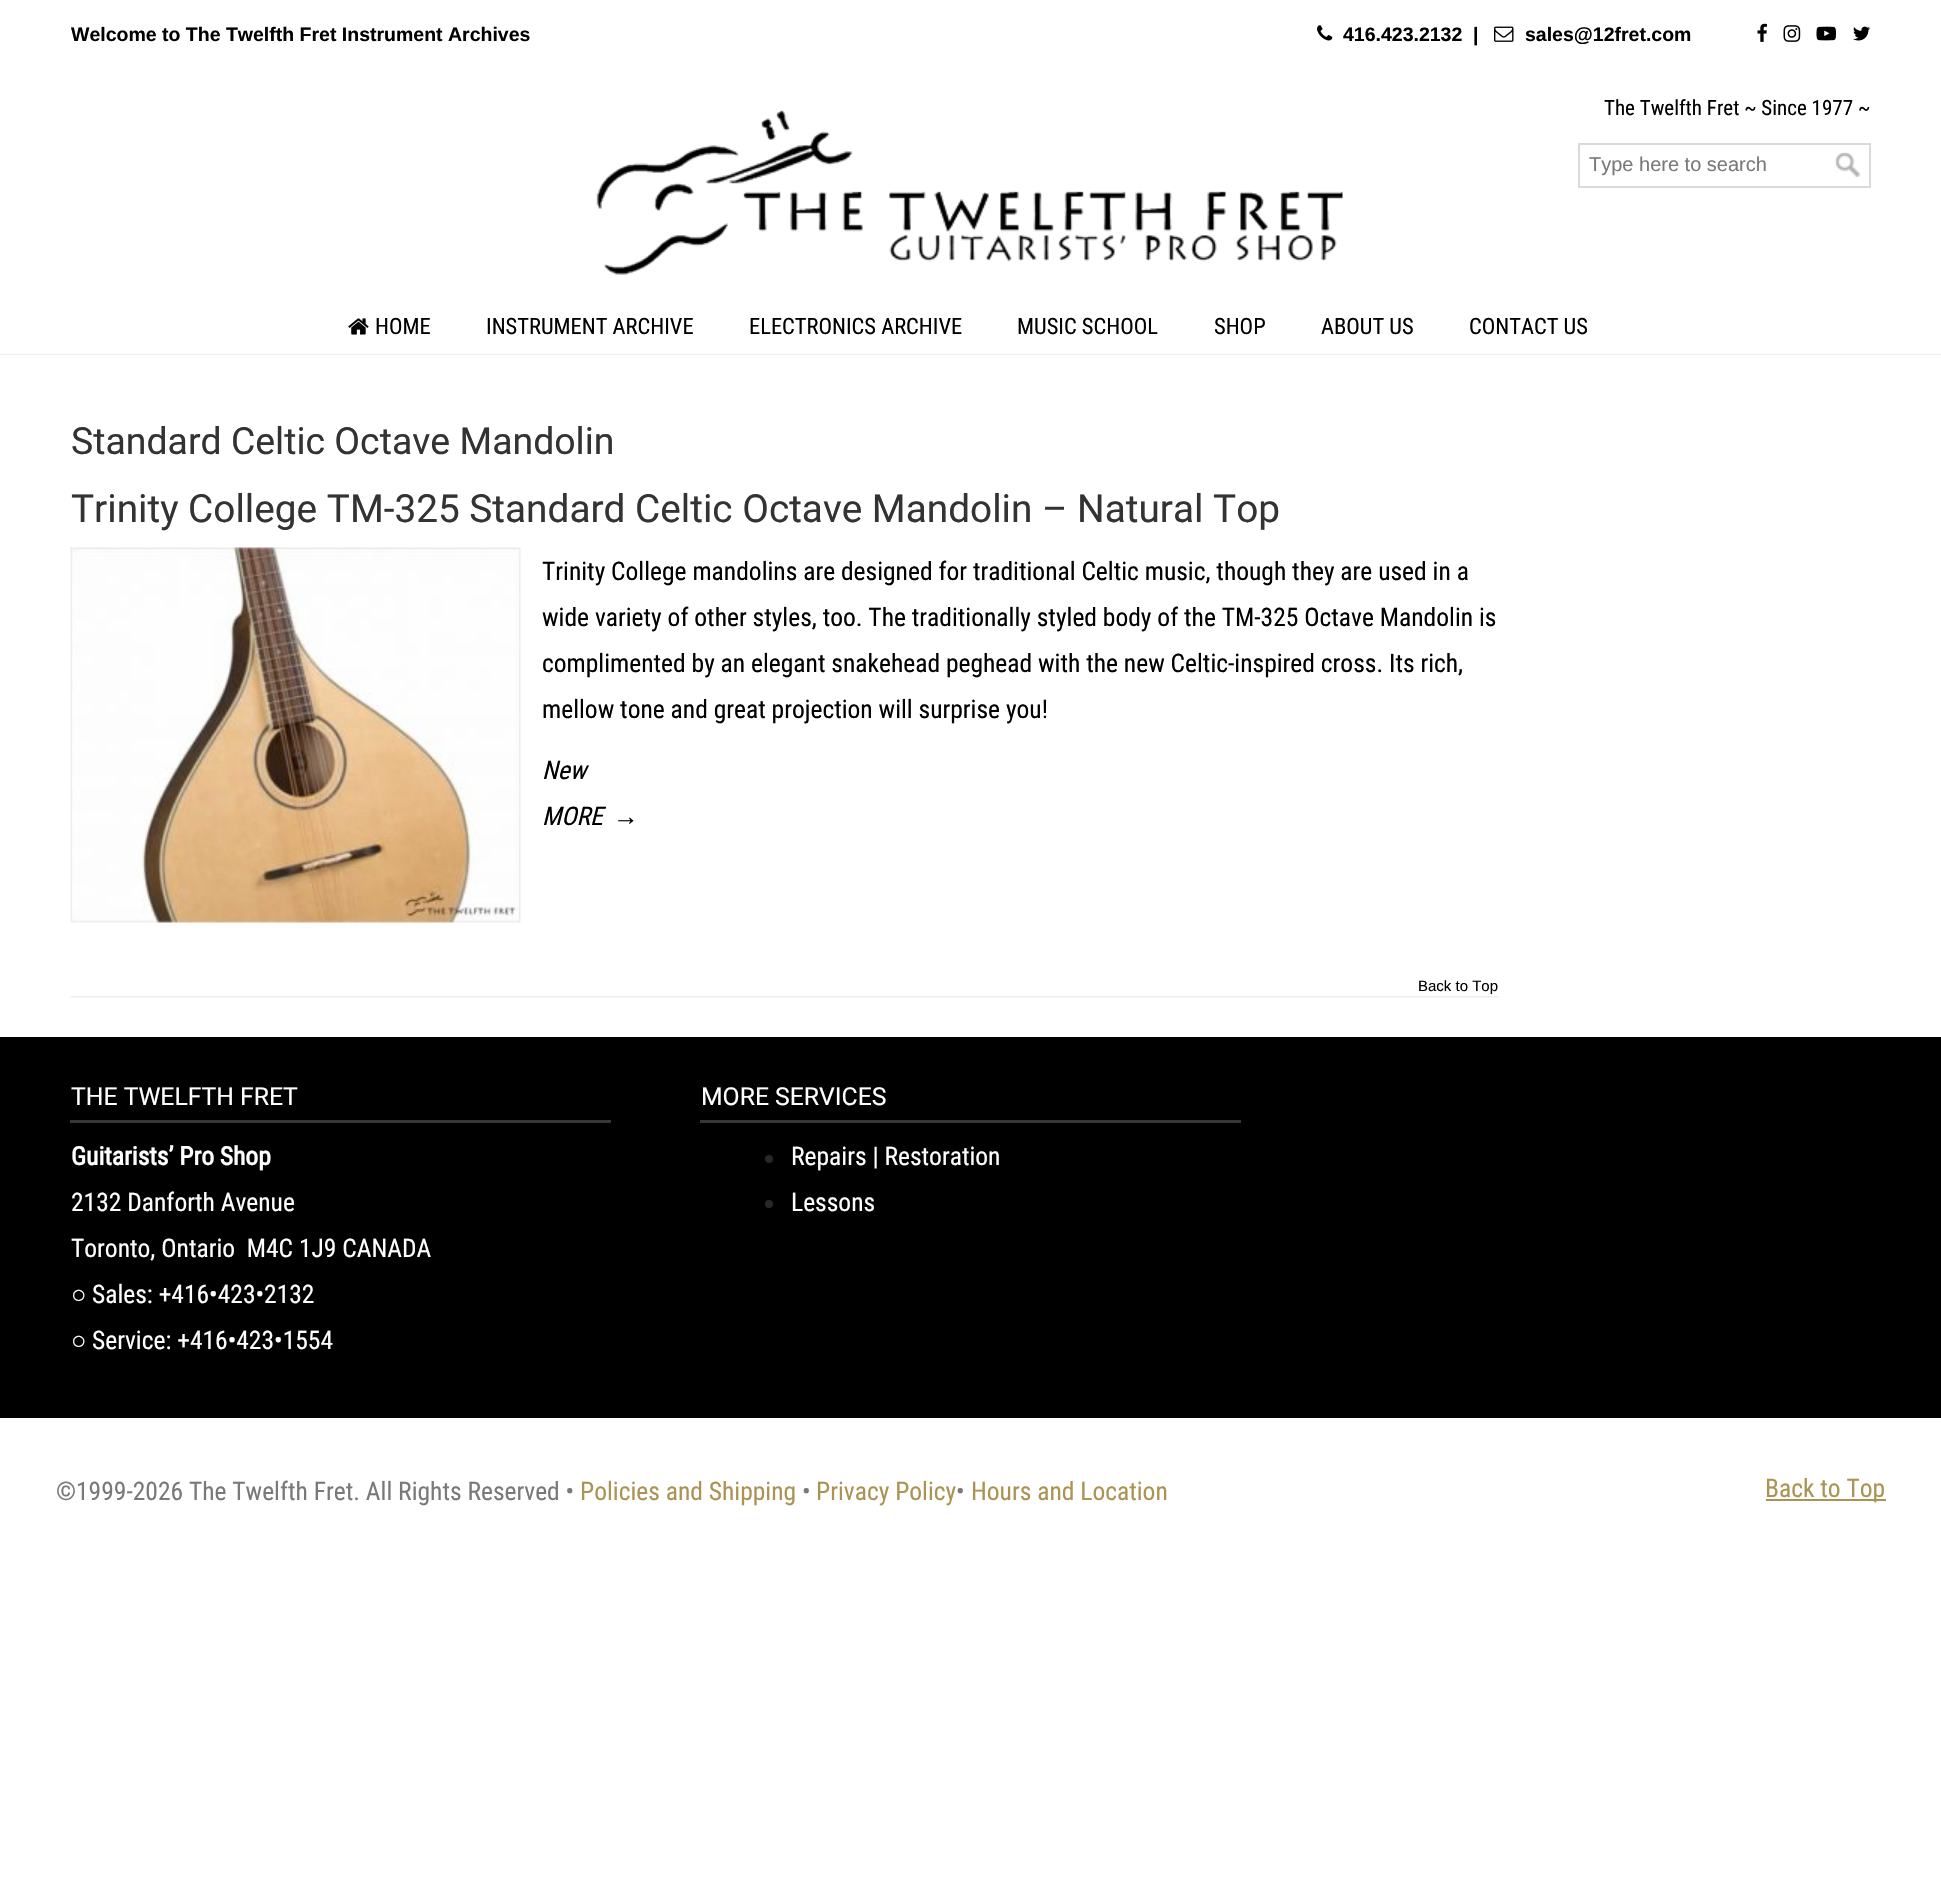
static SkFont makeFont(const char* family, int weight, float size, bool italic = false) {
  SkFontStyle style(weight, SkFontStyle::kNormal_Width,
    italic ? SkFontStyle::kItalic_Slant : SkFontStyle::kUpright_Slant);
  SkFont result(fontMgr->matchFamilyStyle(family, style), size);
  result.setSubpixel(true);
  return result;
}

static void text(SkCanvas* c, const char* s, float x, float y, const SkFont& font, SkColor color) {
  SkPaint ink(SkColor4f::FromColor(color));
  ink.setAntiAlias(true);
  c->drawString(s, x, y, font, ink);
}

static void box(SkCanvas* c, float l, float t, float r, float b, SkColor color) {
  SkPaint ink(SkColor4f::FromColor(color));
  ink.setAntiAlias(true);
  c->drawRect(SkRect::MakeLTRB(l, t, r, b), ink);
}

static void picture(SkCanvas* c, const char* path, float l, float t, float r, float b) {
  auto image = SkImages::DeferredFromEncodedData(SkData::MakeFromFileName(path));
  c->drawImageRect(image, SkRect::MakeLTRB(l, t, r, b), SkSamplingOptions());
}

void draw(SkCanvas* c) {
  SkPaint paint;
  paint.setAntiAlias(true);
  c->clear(0xffffffff);
  SkFont face1 = makeFont("Liberation Sans", 700, 19.5f);
  text(c, "Welcome to The Twelfth Fret Instrument Archives", 71, 41, face1, 0xff000000);
  picture(c, "img_01.png", 1317, 25, 1333, 41);
  text(c, "416.423.2132", 1343, 41, face1, 0xff000000);
  text(c, "|", 1473, 41, face1, 0xff000000);
  picture(c, "img_02.png", 1494, 26, 1514, 42);
  text(c, "sales@12fret.com", 1525, 41, face1, 0xff000000);
  picture(c, "img_03.png", 1757, 23, 1767, 42);
  picture(c, "img_04.png", 1783, 25, 1801, 42);
  picture(c, "img_05.png", 1816, 26, 1836, 41);
  picture(c, "img_06.png", 1853, 26, 1870, 41);
  SkFont face2 = makeFont("Roboto Condensed", 400, 21);
  text(c, "The Twelfth Fret ~ Since 1977 ~", 1604, 115, face2, 0xff000000);
  picture(c, "img_07.png", 596, 110, 1343, 275);
  paint.setStyle(SkPaint::kStroke_Style);
  paint.setStrokeWidth(2);
  paint.setColor(0xffddd9d9);
  c->drawRect(SkRect::MakeLTRB(1579, 144, 1870, 187), paint);
  SkFont face3 = makeFont("Liberation Sans", 400, 20);
  text(c, "Type here to search", 1589, 171, face3, 0xff797979);
  picture(c, "img_08.png", 1835, 152, 1861, 177);
  picture(c, "img_09.png", 348, 318, 369, 335);
  SkFont face4 = makeFont("Roboto Condensed", 400, 22.5f);
  text(c, "HOME", 375, 334, face4, 0xff000000);
  text(c, "INSTRUMENT ARCHIVE", 486, 334, face4, 0xff000000);
  text(c, "ELECTRONICS ARCHIVE", 749, 334, face4, 0xff000000);
  text(c, "MUSIC SCHOOL", 1017, 334, face4, 0xff000000);
  text(c, "SHOP", 1214, 334, face4, 0xff000000);
  text(c, "ABOUT US", 1321, 334, face4, 0xff000000);
  text(c, "CONTACT US", 1469, 334, face4, 0xff000000);
  picture(c, "img_10.png", 0, 353, 1941, 355);
  SkFont face5 = makeFont("Roboto", 400, 37.4f);
  text(c, "Standard Celtic Octave Mandolin", 71, 454, face5, 0xff333333);
  SkFont face6 = makeFont("Roboto", 400, 38.75f);
  text(c, "Trinity College TM-325 Standard Celtic Octave Mandolin – Natural Top", 71, 522, face6, 0xff333333);
  picture(c, "img_11.png", 70, 547, 521, 923);
  SkFont face7 = makeFont("Roboto Condensed", 400, 25.5f);
  text(c, "Trinity College mandolins are designed for traditional Celtic music, though they are used in a", 542, 580, face7, 0xff000000);
  text(c, "wide variety of other styles, too. The traditionally styled body of the TM-325 Octave Mandolin is", 542, 626, face7, 0xff000000);
  text(c, "complimented by an elegant snakehead peghead with the new Celtic-inspired cross. Its rich,", 542, 672, face7, 0xff000000);
  text(c, "mellow tone and great projection will surprise you!", 542, 718, face7, 0xff000000);
  SkFont face8 = makeFont("Roboto Condensed", 400, 25.5f, true);
  text(c, "New", 542, 779, face8, 0xff000000);
  text(c, "MORE", 542, 825, face8, 0xff000000);
  SkFont face9 = makeFont("Liberation Serif", 400, 25.5f);
  text(c, "→", 613, 825, face9, 0xff000000);
  picture(c, "img_12.png", 70, 996, 1499, 998);
  SkFont face10 = makeFont("Liberation Sans", 400, 15);
  text(c, "Back to Top", 1418, 991, face10, 0xff000000);
  box(c, 0, 1037, 1941, 1418, 0xff000000);
  box(c, 70, 1120, 611, 1123, 0xff383838);
  SkFont face11 = makeFont("Roboto", 400, 24.75f);
  text(c, "THE TWELFTH FRET", 71, 1105, face11, 0xffffffff);
  SkFont face12 = makeFont("Roboto Condensed", 700, 25.5f);
  text(c, "Guitarists’ Pro Shop", 71, 1165, face12, 0xffffffff);
  text(c, "2132 Danforth Avenue", 71, 1211, face7, 0xffffffff);
  text(c, "Toronto, Ontario  M4C 1J9 CANADA", 71, 1257, face7, 0xffffffff);
  text(c, "○", 71, 1303, face9, 0xffffffff);
  text(c, "Sales: +416•423•2132", 92, 1303, face7, 0xffffffff);
  text(c, "○", 71, 1349, face9, 0xffffffff);
  text(c, "Service: +416•423•1554", 92, 1349, face7, 0xffffffff);
  box(c, 700, 1120, 1241, 1123, 0xff383838);
  text(c, "MORE SERVICES", 701, 1105, face11, 0xffffffff);
  paint.setStyle(SkPaint::kFill_Style);
  paint.setColor(0xff282828);
  c->drawCircle(769, 1159, 4, paint);
  text(c, "Repairs | Restoration", 791, 1165, face7, 0xffffffff);
  c->drawCircle(769, 1204, 4, paint);
  text(c, "Lessons", 791, 1211, face7, 0xffffffff);
  text(c, "©1999-2026 The Twelfth Fret. All Rights Reserved •", 56, 1500, face7, 0xff797979);
  text(c, "Policies and Shipping", 580, 1500, face7, 0xffab9353);
  text(c, "•", 802, 1500, face7, 0xff797979);
  text(c, "Privacy Policy", 816, 1500, face7, 0xffab9353);
  text(c, "•", 956, 1500, face7, 0xff797979);
  text(c, "Hours and Location", 971, 1500, face7, 0xffab9353);
  box(c, 1766, 1499, 1886, 1501, 0xffab9353);
  text(c, "Back to Top", 1765, 1497, face7, 0xffab9353);
}
